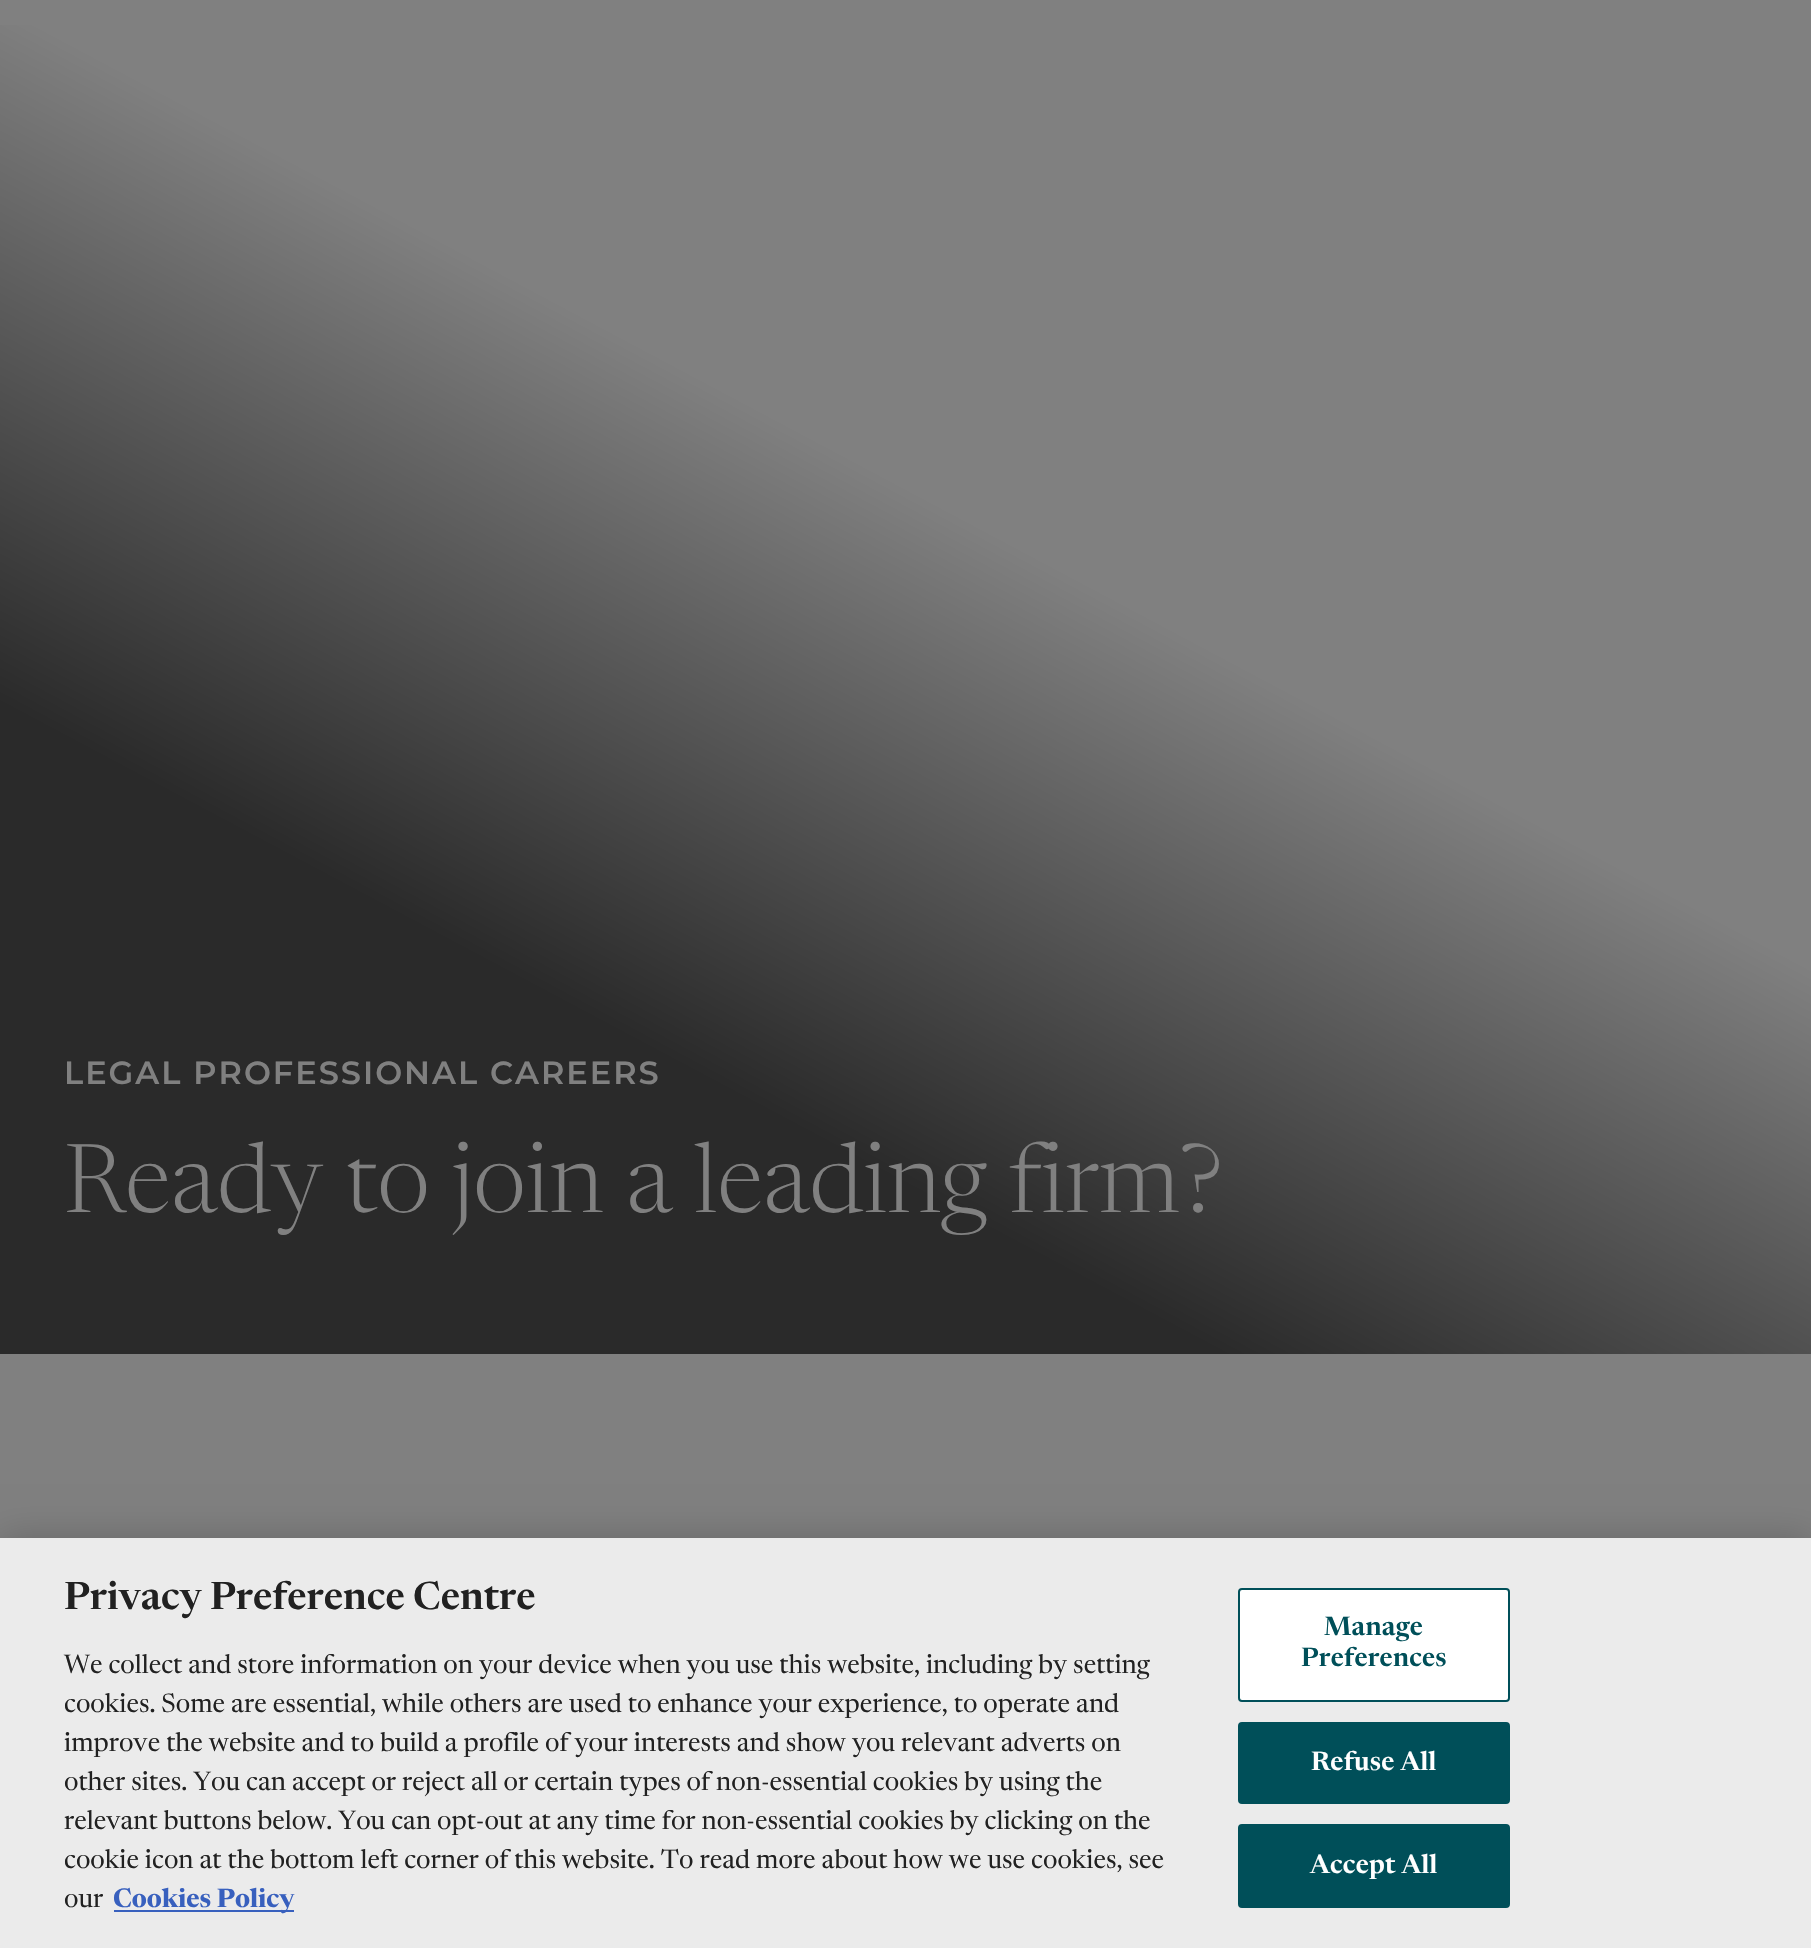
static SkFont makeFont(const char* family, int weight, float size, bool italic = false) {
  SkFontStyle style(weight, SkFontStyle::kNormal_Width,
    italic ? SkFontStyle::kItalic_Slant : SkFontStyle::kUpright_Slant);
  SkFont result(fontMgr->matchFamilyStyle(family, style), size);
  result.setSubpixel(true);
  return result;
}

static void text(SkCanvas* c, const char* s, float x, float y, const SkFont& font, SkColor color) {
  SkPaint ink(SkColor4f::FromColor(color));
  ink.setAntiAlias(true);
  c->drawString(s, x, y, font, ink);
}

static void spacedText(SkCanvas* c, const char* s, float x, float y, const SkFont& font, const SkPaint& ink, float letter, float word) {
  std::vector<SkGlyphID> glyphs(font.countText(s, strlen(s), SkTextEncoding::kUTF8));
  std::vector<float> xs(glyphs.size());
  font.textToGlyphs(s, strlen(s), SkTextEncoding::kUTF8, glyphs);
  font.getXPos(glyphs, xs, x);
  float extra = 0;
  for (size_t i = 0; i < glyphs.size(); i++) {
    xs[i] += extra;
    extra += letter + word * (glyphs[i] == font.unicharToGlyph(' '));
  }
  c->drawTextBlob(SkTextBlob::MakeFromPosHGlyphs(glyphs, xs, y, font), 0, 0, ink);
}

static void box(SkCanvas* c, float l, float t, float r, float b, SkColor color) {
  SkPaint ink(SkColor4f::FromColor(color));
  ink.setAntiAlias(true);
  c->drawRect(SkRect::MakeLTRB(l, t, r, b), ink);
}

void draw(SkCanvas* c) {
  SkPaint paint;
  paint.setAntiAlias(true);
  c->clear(0xff808080);
  {
    const SkColor colors[] = {0xff808080, 0xff2a2a2a};
    const float stops[] = {0.46f, 0.74f};
    const SkPoint ends[] = {{1424, -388}, {388, 1560}};
    paint.setShader(SkGradientShader::MakeLinear(ends, colors, stops, 2, SkTileMode::kClamp));
    paint.setAlpha(255);
  }
  c->drawRect(SkRect::MakeLTRB(0, 25, 1811, 1354), paint);
  SkFont face1 = makeFont("Montserrat", 600, 32);
  paint.setShader(nullptr);
  paint.setColor(0xff808080);
  spacedText(c, "LEGAL PROFESSIONAL CAREERS", 64, 1084, face1, paint, 2, 0);
  SkFont face2 = makeFont("Newsreader", 300, 96);
  text(c, "Ready to join a leading firm?", 64, 1212, face2, 0xff808080);
  paint.setColor(0x33000000);
  paint.setMaskFilter(SkMaskFilter::MakeBlur(kNormal_SkBlurStyle, 18));
  c->drawRect(SkRect::MakeLTRB(0, 1538, 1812, 1948), paint);
  paint.setMaskFilter(nullptr);
  box(c, 0, 1538, 1811, 1948, 0xffebebeb);
  SkFont face3 = makeFont("Newsreader", 600, 38.4f);
  text(c, "Privacy Preference Centre", 64, 1609, face3, 0xff212121);
  SkFont face4 = makeFont("Newsreader", 400, 26);
  text(c, "We collect and store information on your device when you use this website, including by setting", 64, 1673, face4, 0xff212121);
  text(c, "cookies. Some are essential, while others are used to enhance your experience, to operate and", 64, 1712, face4, 0xff212121);
  text(c, "improve the website and to build a profile of your interests and show you relevant adverts on", 64, 1751, face4, 0xff212121);
  text(c, "other sites. You can accept or reject all or certain types of non-essential cookies by using the", 64, 1790, face4, 0xff212121);
  text(c, "relevant buttons below. You can opt-out at any time for non-essential cookies by clicking on the", 64, 1829, face4, 0xff212121);
  text(c, "cookie icon at the bottom left corner of this website. To read more about how we use cookies, see", 64, 1868, face4, 0xff212121);
  text(c, "our", 64, 1907, face4, 0xff212121);
  box(c, 114, 1910, 294, 1912, 0xff3860be);
  SkFont face5 = makeFont("Newsreader", 700, 26);
  text(c, "Cookies Policy", 113, 1907, face5, 0xff3860be);
  paint.setColor(0xffffffff);
  c->drawRoundRect(SkRect::MakeLTRB(1239, 1589, 1509, 1701), 3, 3, paint);
  paint.setStyle(SkPaint::kStroke_Style);
  paint.setStrokeWidth(2);
  paint.setColor(0xff004f59);
  c->drawRoundRect(SkRect::MakeLTRB(1239, 1589, 1509, 1701), 3, 3, paint);
  SkFont face6 = makeFont("Newsreader", 600, 26);
  paint.setStyle(SkPaint::kFill_Style);
  spacedText(c, "Manage", 1324, 1635, face6, paint, 0.25f, 0);
  spacedText(c, "Preferences", 1301, 1666, face6, paint, 0.25f, 0);
  c->drawRoundRect(SkRect::MakeLTRB(1239, 1723, 1509, 1803), 3, 3, paint);
  paint.setStyle(SkPaint::kStroke_Style);
  c->drawRoundRect(SkRect::MakeLTRB(1239, 1723, 1509, 1803), 3, 3, paint);
  paint.setStyle(SkPaint::kFill_Style);
  paint.setColor(0xffffffff);
  spacedText(c, "Refuse All", 1311, 1770, face6, paint, 0.25f, 0);
  paint.setColor(0xff004f59);
  c->drawRoundRect(SkRect::MakeLTRB(1239, 1825, 1509, 1907), 3, 3, paint);
  paint.setStyle(SkPaint::kStroke_Style);
  c->drawRoundRect(SkRect::MakeLTRB(1239, 1825, 1509, 1907), 3, 3, paint);
  paint.setStyle(SkPaint::kFill_Style);
  paint.setColor(0xffffffff);
  spacedText(c, "Accept All", 1310, 1873, face6, paint, 0.25f, 0);
}
